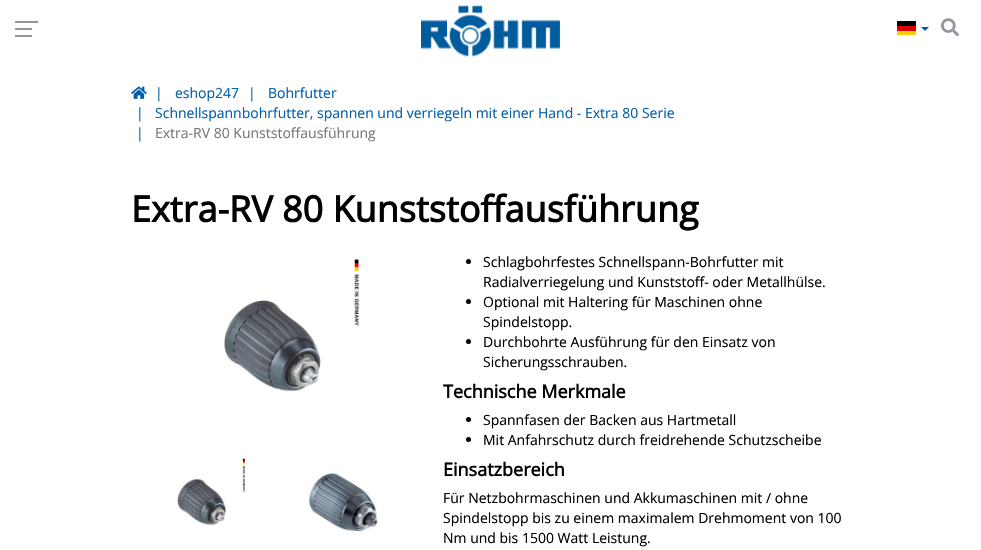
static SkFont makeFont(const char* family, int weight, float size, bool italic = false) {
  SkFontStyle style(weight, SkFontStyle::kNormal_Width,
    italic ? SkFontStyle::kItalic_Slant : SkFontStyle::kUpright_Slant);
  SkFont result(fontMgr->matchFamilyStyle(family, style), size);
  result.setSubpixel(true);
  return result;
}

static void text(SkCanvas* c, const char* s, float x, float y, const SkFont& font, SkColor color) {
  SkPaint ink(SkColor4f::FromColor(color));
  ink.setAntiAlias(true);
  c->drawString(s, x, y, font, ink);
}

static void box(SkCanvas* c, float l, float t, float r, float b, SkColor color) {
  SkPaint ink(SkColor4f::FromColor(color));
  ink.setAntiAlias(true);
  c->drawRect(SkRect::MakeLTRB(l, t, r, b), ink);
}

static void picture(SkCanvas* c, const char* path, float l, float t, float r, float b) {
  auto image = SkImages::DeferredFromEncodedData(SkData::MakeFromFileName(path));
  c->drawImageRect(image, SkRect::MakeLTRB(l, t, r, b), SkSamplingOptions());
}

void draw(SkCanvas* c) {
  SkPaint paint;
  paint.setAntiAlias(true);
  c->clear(0xffffffff);
  box(c, 15, 28, 32, 30, 0xff9196a0);
  box(c, 15, 21, 38, 23, 0xff9196a0);
  box(c, 15, 35, 32, 37, 0xff9196a0);
  picture(c, "img_01.png", 421, 5, 560, 57);
  box(c, 897, 31, 916, 35, 0xffffce00);
  box(c, 897, 21, 916, 26, 0xff000000);
  box(c, 897, 26, 916, 31, 0xffdd0000);
  paint.setColor(0xff005fa8);
  c->drawPath(SkPathBuilder().moveTo(921, 27).lineTo(929, 27).lineTo(925, 31).close().detach(), paint);
  picture(c, "img_02.png", 941, 18, 959, 37);
  picture(c, "img_03.png", 131, 86, 147, 99);
  SkFont face1 = makeFont("Open Sans", 400, 14);
  text(c, "|", 155, 98, face1, 0xff005fa8);
  text(c, "eshop247", 175, 98, face1, 0xff005fa8);
  text(c, "|", 248, 98, face1, 0xff005fa8);
  text(c, "Bohrfutter", 268, 98, face1, 0xff005fa8);
  text(c, "|", 136, 118, face1, 0xff005fa8);
  text(c, "Schnellspannbohrfutter, spannen und verriegeln mit einer Hand - Extra 80 Serie", 155, 118, face1, 0xff005fa8);
  text(c, "|", 136, 138, face1, 0xff005fa8);
  text(c, "Extra-RV 80 Kunststoffausführung", 155, 138, face1, 0xff777777);
  SkFont face2 = makeFont("Open Sans", 700, 36);
  text(c, "Extra-RV 80 Kunststoffausführung", 131, 222, face2, 0xff000000);
  picture(c, "img_04.png", 222, 259, 360, 392);
  picture(c, "img_05.png", 176, 458, 247, 526);
  picture(c, "img_06.png", 307, 470, 378, 532);
  paint.setColor(0xff000000);
  c->drawCircle(468.5f, 261.5f, 2.5f, paint);
  text(c, "Schlagbohrfestes Schnellspann-Bohrfutter mit", 483, 267, face1, 0xff000000);
  text(c, "Radialverriegelung und Kunststoff- oder Metallhülse.", 483, 287, face1, 0xff000000);
  c->drawCircle(468.5f, 301.5f, 2.5f, paint);
  text(c, "Optional mit Haltering für Maschinen ohne", 483, 307, face1, 0xff000000);
  text(c, "Spindelstopp.", 483, 327, face1, 0xff000000);
  c->drawCircle(468.5f, 341.5f, 2.5f, paint);
  text(c, "Durchbohrte Ausführung für den Einsatz von", 483, 347, face1, 0xff000000);
  text(c, "Sicherungsschrauben.", 483, 367, face1, 0xff000000);
  SkFont face3 = makeFont("Open Sans", 700, 18);
  text(c, "Technische Merkmale", 443, 398, face3, 0xff000000);
  c->drawCircle(468.5f, 419.5f, 2.5f, paint);
  text(c, "Spannfasen der Backen aus Hartmetall", 483, 425, face1, 0xff000000);
  c->drawCircle(468.5f, 439.5f, 2.5f, paint);
  text(c, "Mit Anfahrschutz durch freidrehende Schutzscheibe", 483, 445, face1, 0xff000000);
  text(c, "Einsatzbereich", 443, 476, face3, 0xff000000);
  text(c, "Für Netzbohrmaschinen und Akkumaschinen mit / ohne", 443, 503, face1, 0xff000000);
  text(c, "Spindelstopp bis zu einem maximalem Drehmoment von 100", 443, 523, face1, 0xff000000);
  text(c, "Nm und bis 1500 Watt Leistung.", 443, 543, face1, 0xff000000);
}
